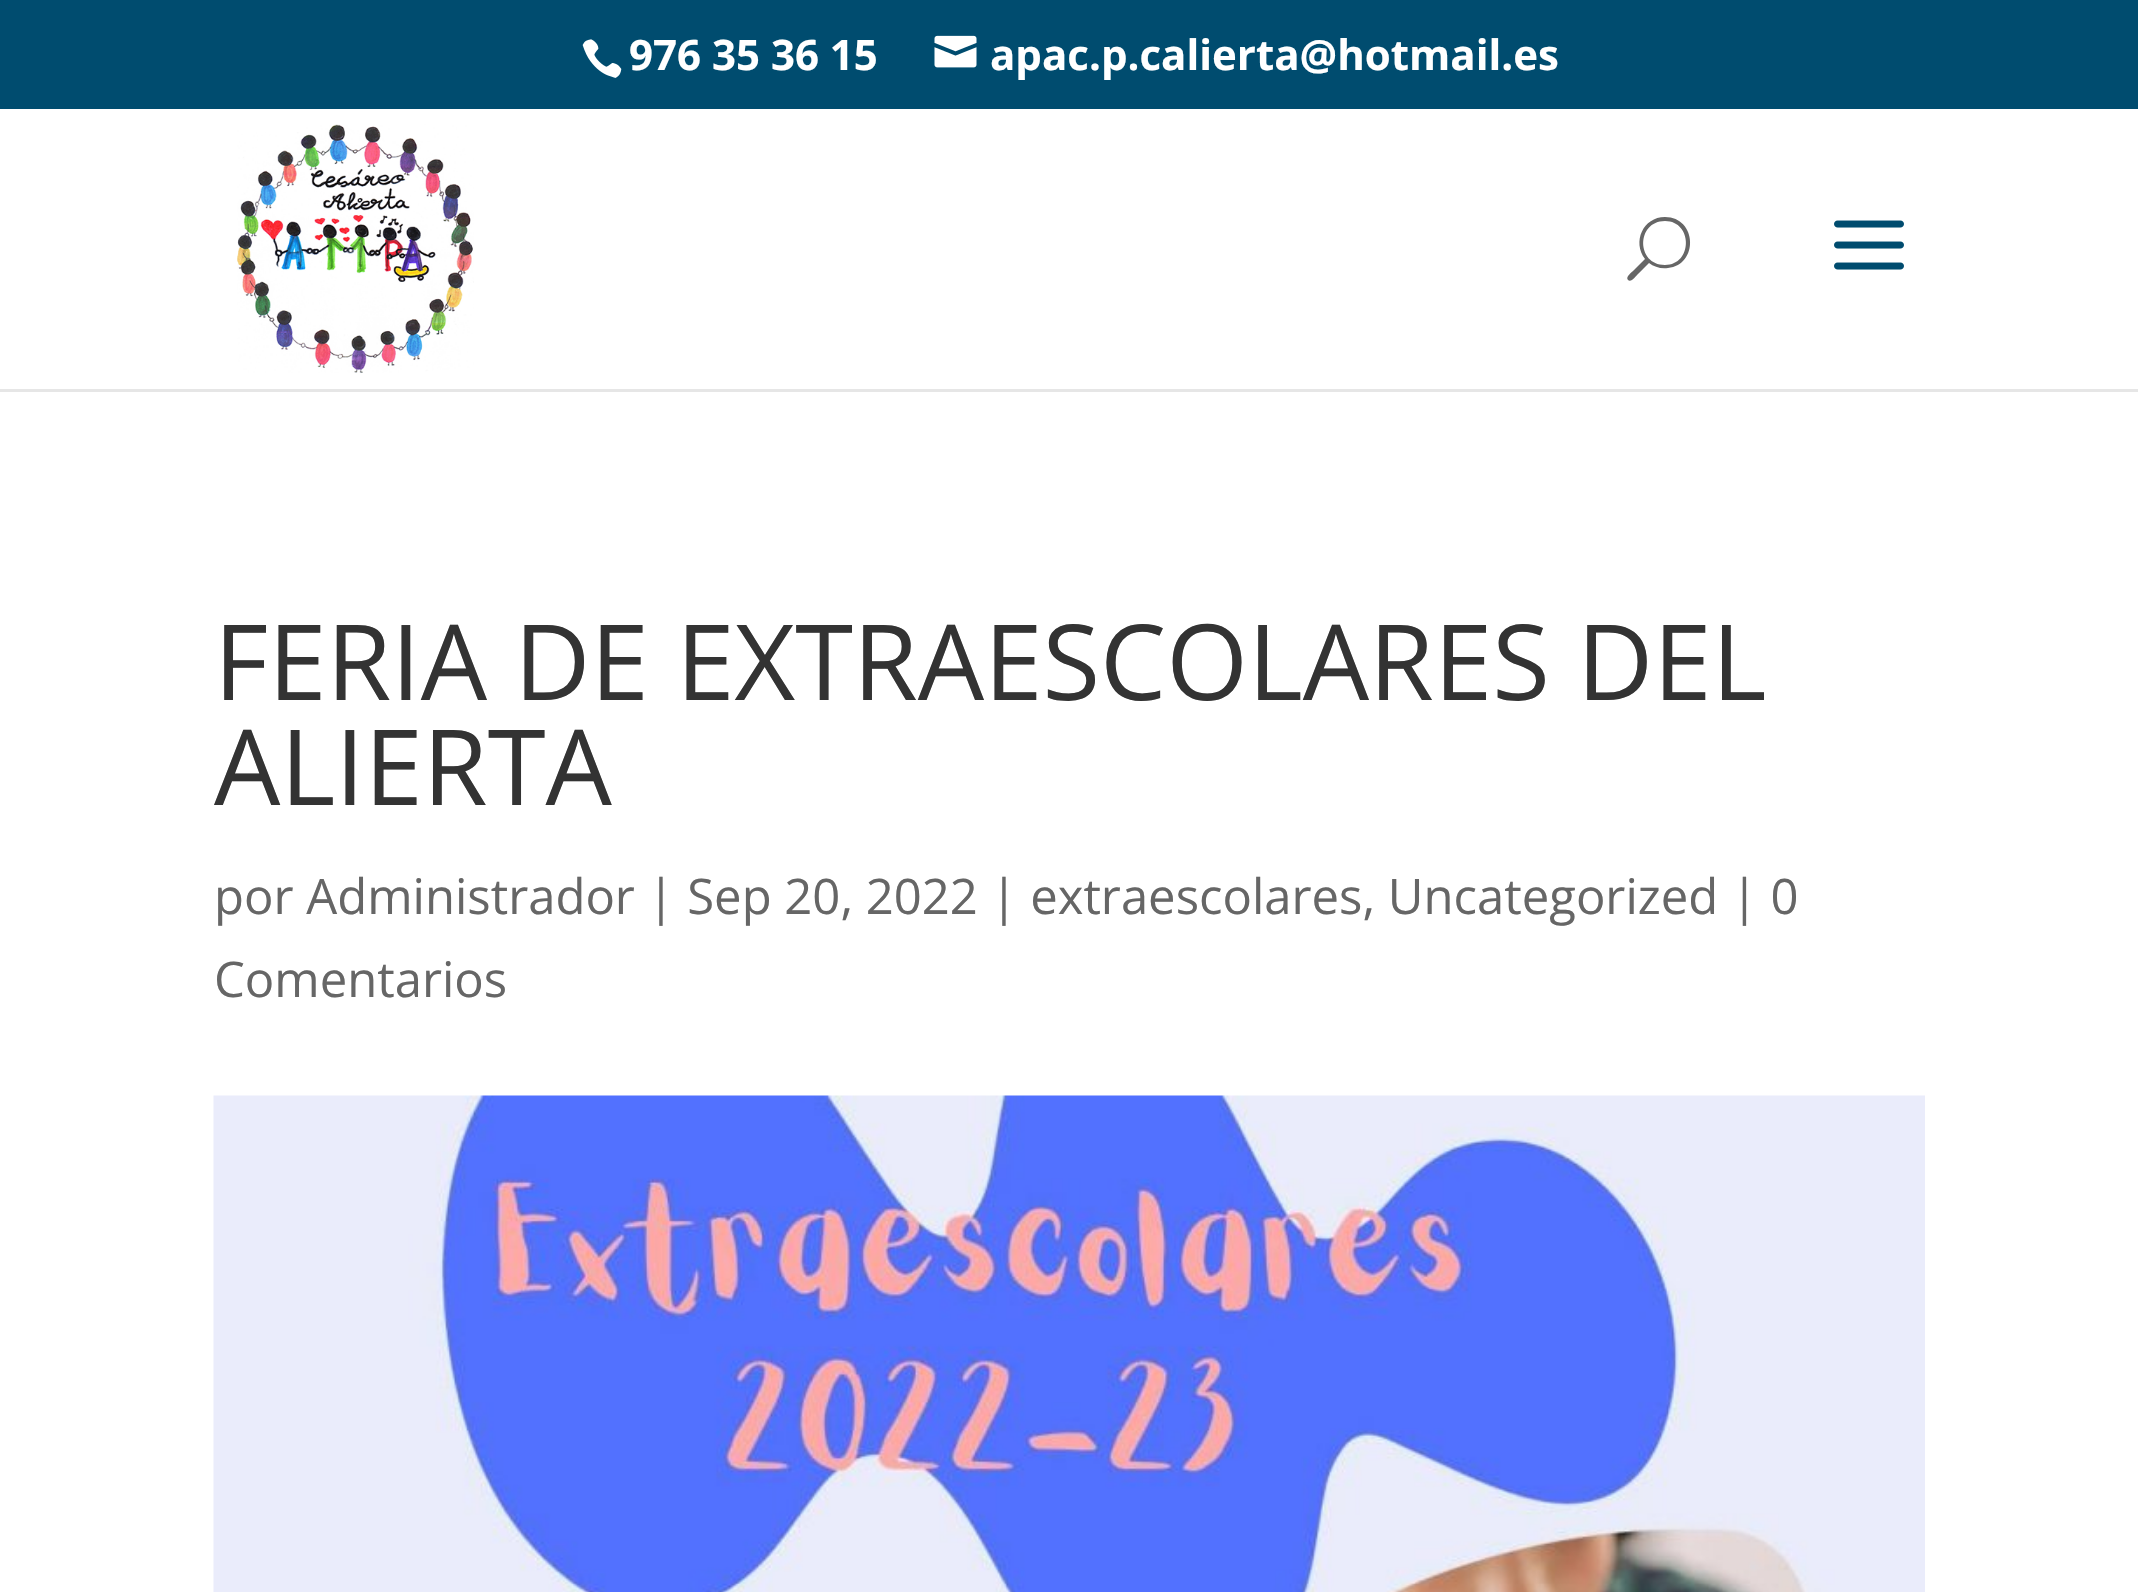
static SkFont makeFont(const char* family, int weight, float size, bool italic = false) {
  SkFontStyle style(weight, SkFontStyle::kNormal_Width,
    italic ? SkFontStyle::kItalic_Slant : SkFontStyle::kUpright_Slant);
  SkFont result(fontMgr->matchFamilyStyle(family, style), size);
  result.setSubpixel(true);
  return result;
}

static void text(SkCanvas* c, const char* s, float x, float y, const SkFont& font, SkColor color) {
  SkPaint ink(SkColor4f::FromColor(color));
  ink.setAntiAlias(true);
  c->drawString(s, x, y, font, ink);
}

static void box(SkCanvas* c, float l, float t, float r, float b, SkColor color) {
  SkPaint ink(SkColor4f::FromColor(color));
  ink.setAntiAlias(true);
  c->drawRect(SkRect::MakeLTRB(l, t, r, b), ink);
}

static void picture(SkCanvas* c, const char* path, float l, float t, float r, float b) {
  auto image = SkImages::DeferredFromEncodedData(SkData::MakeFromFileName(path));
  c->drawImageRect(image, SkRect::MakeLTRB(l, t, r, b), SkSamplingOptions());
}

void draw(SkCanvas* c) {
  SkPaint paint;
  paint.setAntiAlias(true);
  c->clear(0xffffffff);
  box(c, 0, 0, 2138, 109, 0xff004c6f);
  picture(c, "img_01.png", 582, 39, 622, 78);
  SkFont face1 = makeFont("Open Sans", 700, 42);
  text(c, "976 35 36 15", 629, 70, face1, 0xffffffff);
  picture(c, "img_02.png", 934, 35, 977, 68);
  text(c, "apac.p.calierta@hotmail.es", 990, 70, face1, 0xffffffff);
  paint.setColor(0xffe6e6e6);
  c->drawPath(SkPathBuilder().moveTo(0, 388).lineTo(0, 392).lineTo(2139, 392).lineTo(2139, 112).lineTo(2138, 112).lineTo(2138, 388).close().detach(), paint);
  box(c, 0, 388, 2138, 389, 0xffffffff);
  picture(c, "img_03.png", 237, 124, 474, 373);
  paint.setColor(0xff666666);
  c->drawPath(SkPathBuilder().moveTo(1665, 217).cubicTo(1643, 217, 1632, 242, 1645, 259).lineTo(1634, 270).cubicTo(1632, 272, 1625, 277, 1628, 280).cubicTo(1631, 283, 1636, 276, 1638, 274).lineTo(1649, 263).cubicTo(1654, 267, 1661, 269, 1668, 268).cubicTo(1699, 265, 1697, 217, 1665, 217).close().moveTo(1665, 265).cubicTo(1636, 265, 1636, 221, 1665, 221).cubicTo(1693, 221, 1693, 265, 1665, 265).close().detach(), paint);
  picture(c, "img_04.png", 1834, 220, 1904, 270);
  SkFont face2 = makeFont("Open Sans", 400, 105);
  text(c, "FERIA DE EXTRAESCOLARES DEL", 214, 700, face2, 0xff333333);
  text(c, "ALIERTA", 214, 805, face2, 0xff333333);
  SkFont face3 = makeFont("Open Sans", 400, 49);
  text(c, "por Administrador | Sep 20, 2022 | extraescolares, Uncategorized | 0", 214, 914, face3, 0xff666666);
  text(c, "Comentarios", 214, 997, face3, 0xff666666);
  picture(c, "img_05.png", 213, 1095, 1925, 1592);
}
